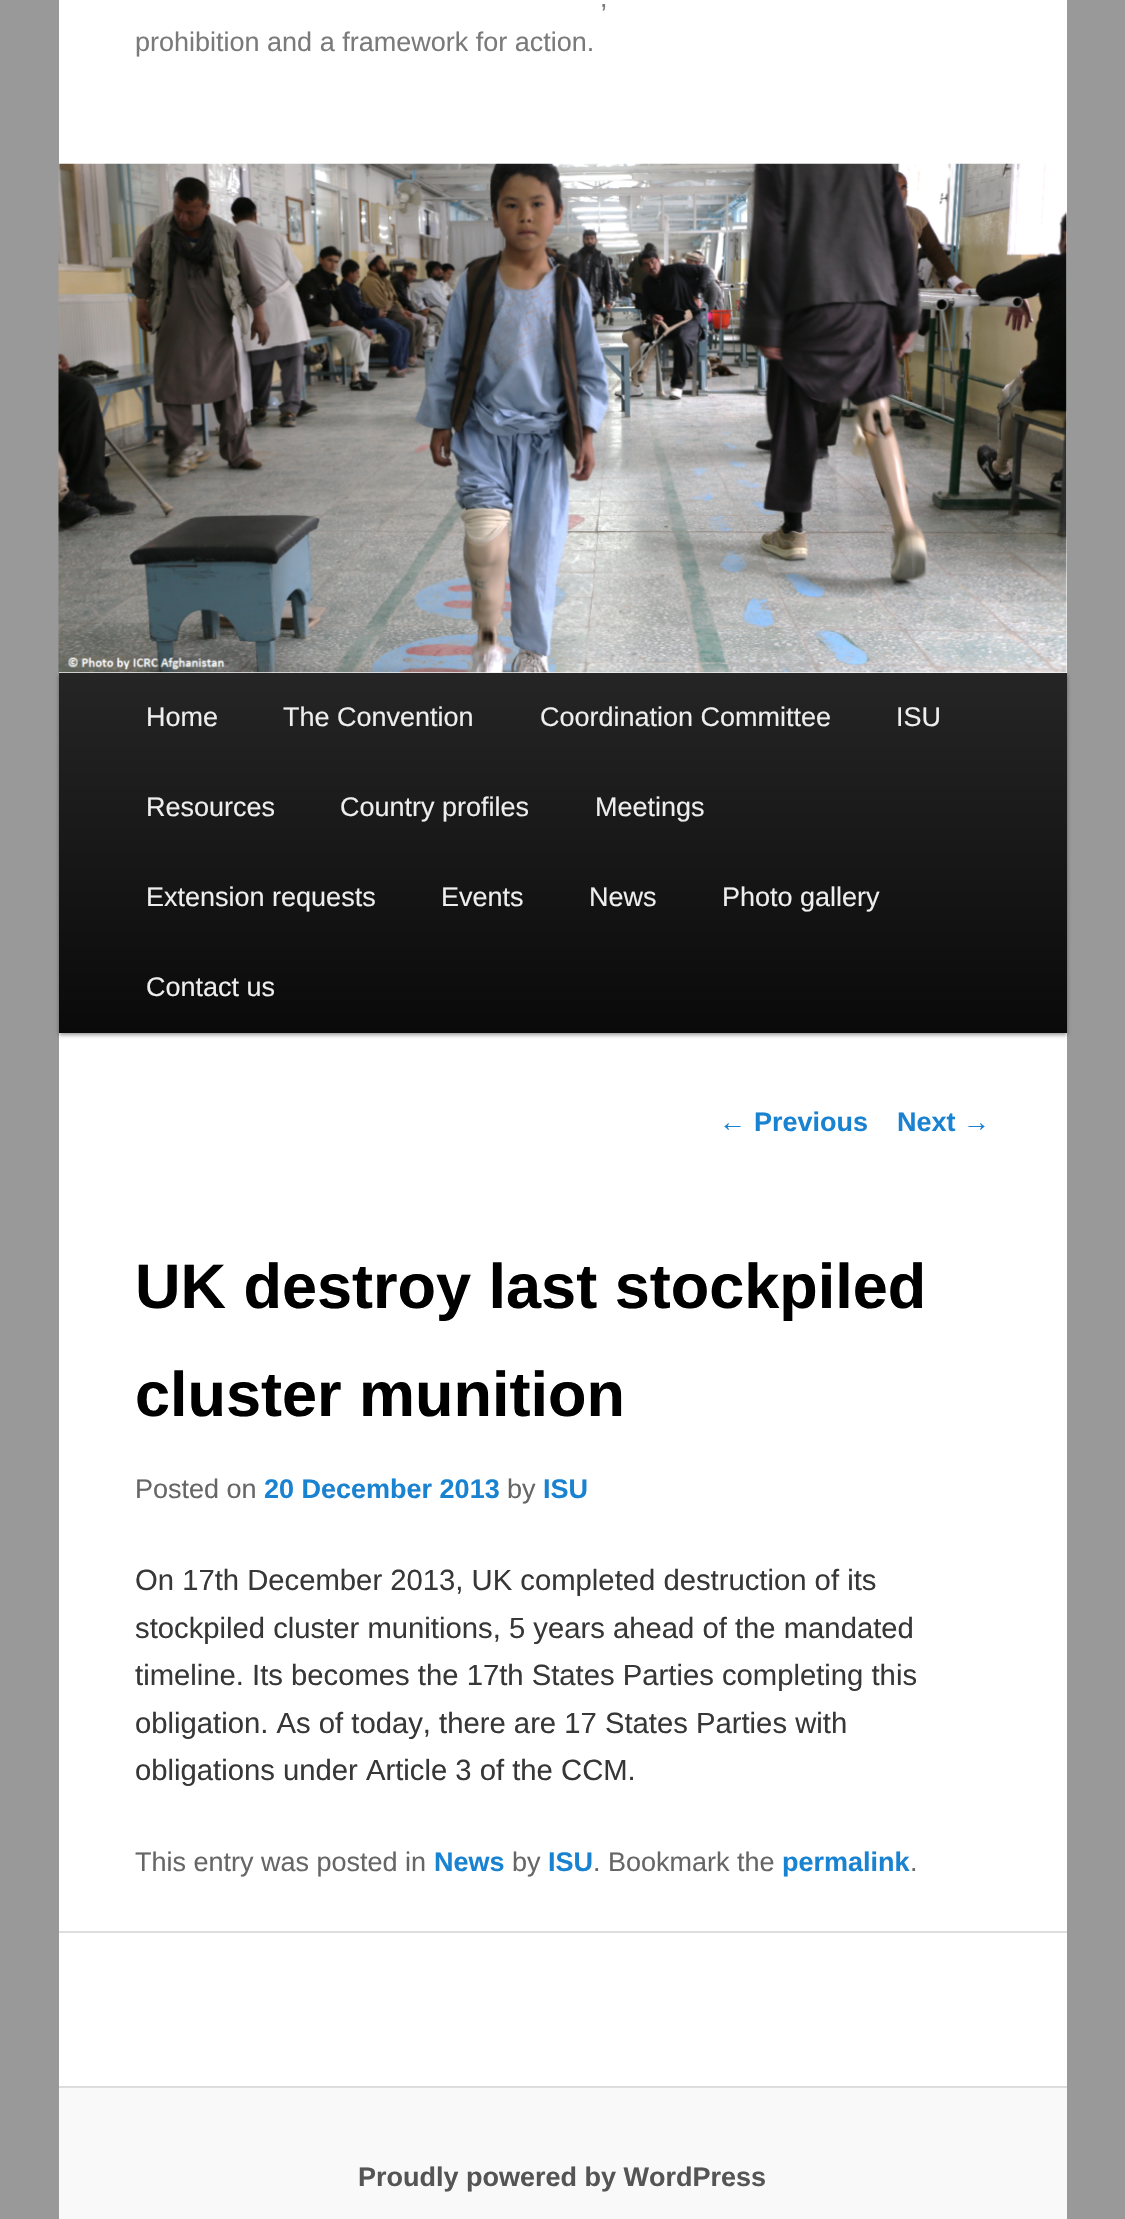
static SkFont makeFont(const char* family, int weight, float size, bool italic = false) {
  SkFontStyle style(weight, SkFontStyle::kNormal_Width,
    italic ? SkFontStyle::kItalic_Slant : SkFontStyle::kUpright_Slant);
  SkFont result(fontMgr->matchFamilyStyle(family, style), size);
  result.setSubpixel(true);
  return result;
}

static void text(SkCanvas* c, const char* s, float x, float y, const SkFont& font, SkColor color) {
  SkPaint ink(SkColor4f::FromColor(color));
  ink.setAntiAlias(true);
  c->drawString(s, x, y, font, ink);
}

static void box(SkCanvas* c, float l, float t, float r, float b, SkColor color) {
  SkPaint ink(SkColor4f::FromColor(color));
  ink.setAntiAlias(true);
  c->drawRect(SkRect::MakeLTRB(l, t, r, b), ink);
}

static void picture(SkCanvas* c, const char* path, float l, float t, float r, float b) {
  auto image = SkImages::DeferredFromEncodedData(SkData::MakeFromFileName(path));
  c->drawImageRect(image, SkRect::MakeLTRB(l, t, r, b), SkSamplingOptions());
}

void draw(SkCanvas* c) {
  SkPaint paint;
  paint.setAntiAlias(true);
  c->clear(0xff999999);
  box(c, 59, 0, 1067, 2086, 0xffffffff);
  SkFont face1 = makeFont("Liberation Sans", 400, 27);
  text(c, ",", 600, 7, face1, 0xff7a7a7a);
  text(c, "prohibition and a framework for action.", 135, 51, face1, 0xff7a7a7a);
  paint.setColor(0x66000000);
  paint.setMaskFilter(SkMaskFilter::MakeBlur(kNormal_SkBlurStyle, 2));
  c->drawRect(SkRect::MakeLTRB(59, 675, 1067, 1035), paint);
  paint.setMaskFilter(nullptr);
  picture(c, "img_01.png", 58, 163, 1067, 673);
  {
    const SkColor colors[] = {0xff252525, 0xff0a0a0a};
    const float stops[] = {0, 1};
    const SkPoint ends[] = {{563, 673}, {563, 1033}};
    paint.setShader(SkGradientShader::MakeLinear(ends, colors, stops, 2, SkTileMode::kClamp));
    paint.setAlpha(255);
  }
  c->drawRect(SkRect::MakeLTRB(59, 673, 1067, 1033), paint);
  text(c, "Home", 146, 726, face1, 0xffeeeeee);
  text(c, "The Convention", 283, 726, face1, 0xffeeeeee);
  text(c, "Coordination Committee", 540, 726, face1, 0xffeeeeee);
  text(c, "ISU", 896, 726, face1, 0xffeeeeee);
  text(c, "Resources", 146, 816, face1, 0xffeeeeee);
  text(c, "Country profiles", 340, 816, face1, 0xffeeeeee);
  text(c, "Meetings", 595, 816, face1, 0xffeeeeee);
  text(c, "Extension requests", 146, 906, face1, 0xffeeeeee);
  text(c, "Events", 441, 906, face1, 0xffeeeeee);
  text(c, "News", 589, 906, face1, 0xffeeeeee);
  text(c, "Photo gallery", 722, 906, face1, 0xffeeeeee);
  text(c, "Contact us", 146, 996, face1, 0xffeeeeee);
  text(c, "←", 719, 1131, face1, 0xff1982d1);
  SkFont face2 = makeFont("Liberation Sans", 700, 27);
  text(c, "Previous", 754, 1131, face2, 0xff1982d1);
  text(c, "Next", 897, 1131, face2, 0xff1982d1);
  text(c, "→", 963, 1131, face1, 0xff1982d1);
  SkFont face3 = makeFont("Liberation Sans", 700, 63);
  text(c, "UK destroy last stockpiled", 135, 1308, face3, 0xff000000);
  text(c, "cluster munition", 135, 1416, face3, 0xff000000);
  text(c, "Posted on", 135, 1498, face1, 0xff666666);
  text(c, "20 December 2013", 264, 1498, face2, 0xff1982d1);
  text(c, "by", 507, 1498, face1, 0xff666666);
  text(c, "ISU", 543, 1498, face2, 0xff1982d1);
  SkFont face4 = makeFont("Liberation Sans", 400, 29.25f);
  text(c, "On 17th December 2013, UK completed destruction of its", 135, 1590, face4, 0xff373737);
  text(c, "stockpiled cluster munitions, 5 years ahead of the mandated", 135, 1638, face4, 0xff373737);
  text(c, "timeline. Its becomes the 17th States Parties completing this", 135, 1685, face4, 0xff373737);
  text(c, "obligation. As of today, there are 17 States Parties with", 135, 1733, face4, 0xff373737);
  text(c, "obligations under Article 3 of the CCM.", 135, 1780, face4, 0xff373737);
  text(c, "This entry was posted in", 135, 1871, face1, 0xff666666);
  text(c, "News", 434, 1871, face2, 0xff1982d1);
  text(c, "by", 512, 1871, face1, 0xff666666);
  text(c, "ISU", 548, 1871, face2, 0xff1982d1);
  text(c, ". Bookmark the", 593, 1871, face1, 0xff666666);
  text(c, "permalink", 782, 1871, face2, 0xff1982d1);
  text(c, ".", 910, 1871, face1, 0xff666666);
  box(c, 59, 1931, 1067, 1933, 0xffdddddd);
  box(c, 59, 2088, 1067, 2219, 0xfff9f9f9);
  box(c, 59, 2086, 1067, 2088, 0xffdddddd);
  text(c, "Proudly powered by WordPress", 358, 2186, face2, 0xff555555);
}
